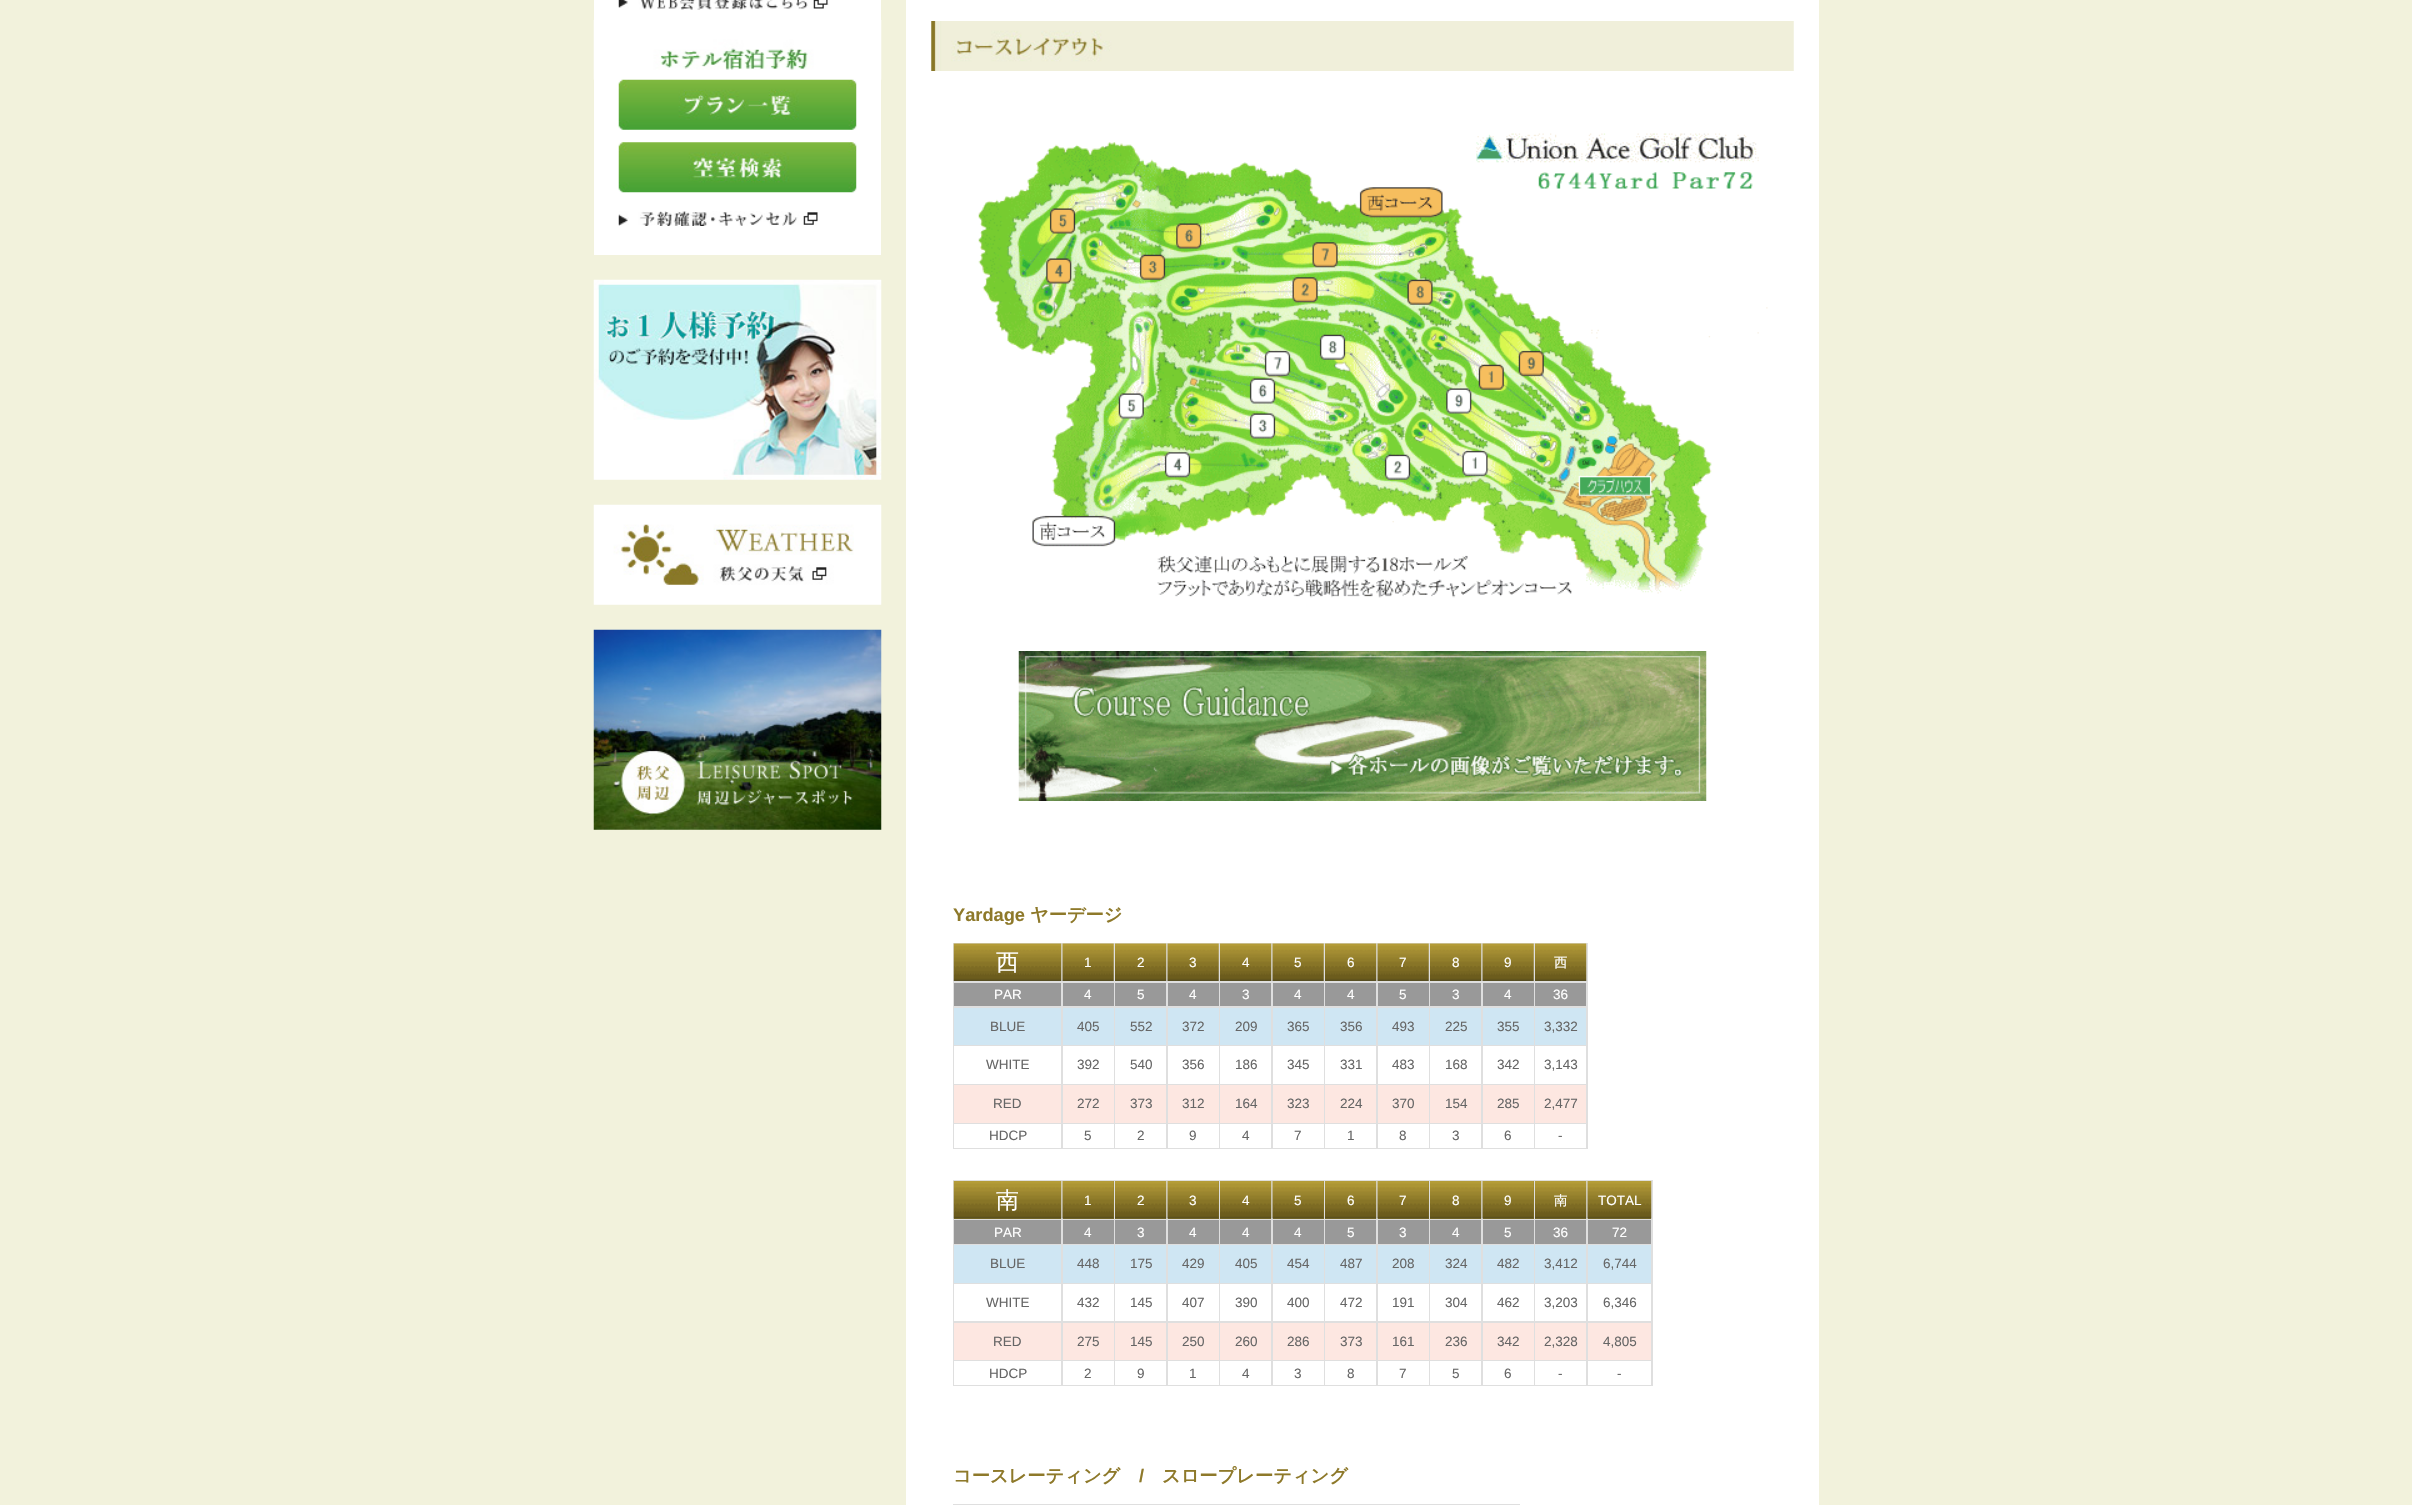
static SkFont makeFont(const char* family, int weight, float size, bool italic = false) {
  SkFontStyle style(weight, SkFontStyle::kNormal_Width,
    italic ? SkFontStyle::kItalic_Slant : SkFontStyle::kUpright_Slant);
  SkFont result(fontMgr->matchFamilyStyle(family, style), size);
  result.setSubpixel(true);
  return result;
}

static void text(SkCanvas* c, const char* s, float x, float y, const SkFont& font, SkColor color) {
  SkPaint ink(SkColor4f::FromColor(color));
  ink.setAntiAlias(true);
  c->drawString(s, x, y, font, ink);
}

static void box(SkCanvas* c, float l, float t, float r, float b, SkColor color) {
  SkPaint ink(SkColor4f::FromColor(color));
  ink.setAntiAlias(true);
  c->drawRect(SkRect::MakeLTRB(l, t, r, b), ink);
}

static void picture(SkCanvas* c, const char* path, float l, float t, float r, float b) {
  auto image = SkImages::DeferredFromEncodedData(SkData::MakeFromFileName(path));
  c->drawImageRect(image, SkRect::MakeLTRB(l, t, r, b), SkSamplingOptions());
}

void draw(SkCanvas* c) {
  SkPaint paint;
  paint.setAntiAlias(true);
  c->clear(0xfff2f2dc);
  box(c, 594, 0, 881, 255, 0xffffffff);
  picture(c, "img_01.png", 618, 0, 829, 10);
  picture(c, "img_02.png", 593, 20, 882, 80);
  picture(c, "img_03.png", 618, 79, 857, 130);
  picture(c, "img_04.png", 618, 142, 857, 193);
  picture(c, "img_05.png", 618, 211, 818, 226);
  picture(c, "img_06.png", 593, 279, 882, 480);
  picture(c, "img_07.png", 593, 504, 882, 605);
  picture(c, "img_08.png", 593, 629, 882, 830);
  box(c, 906, 0, 1819, 1505, 0xffffffff);
  picture(c, "img_09.png", 931, 21, 1794, 71);
  picture(c, "img_10.png", 978, 133, 1768, 598);
  picture(c, "img_11.png", 1018, 651, 1707, 801);
  SkFont face1 = makeFont("Liberation Sans", 700, 18.25f);
  text(c, "Yardage", 953, 921, face1, 0xff8e792a);
  SkFont face2 = makeFont("WenQuanYi Zen Hei", 700, 18.25f);
  text(c, "ヤーデージ", 1030, 921, face2, 0xff8e792a);
  box(c, 953, 943, 1588, 1149, 0xffdfdfdf);
  picture(c, "img_12.png", 953, 943, 1062, 981);
  SkFont face3 = makeFont("WenQuanYi Zen Hei", 500, 23);
  text(c, "西", 996, 970, face3, 0xffffffff);
  picture(c, "img_13.png", 1062, 943, 1114, 981);
  SkFont face4 = makeFont("Liberation Sans", 400, 13.5f);
  text(c, "1", 1084, 967, face4, 0xffffffff);
  picture(c, "img_14.png", 1115, 943, 1167, 981);
  text(c, "2", 1137, 967, face4, 0xffffffff);
  picture(c, "img_15.png", 1167, 943, 1219, 981);
  text(c, "3", 1189, 967, face4, 0xffffffff);
  picture(c, "img_16.png", 1220, 943, 1272, 981);
  text(c, "4", 1242, 967, face4, 0xffffffff);
  picture(c, "img_17.png", 1272, 943, 1324, 981);
  text(c, "5", 1294, 967, face4, 0xffffffff);
  picture(c, "img_18.png", 1325, 943, 1377, 981);
  text(c, "6", 1347, 967, face4, 0xffffffff);
  picture(c, "img_19.png", 1377, 943, 1429, 981);
  text(c, "7", 1399, 967, face4, 0xffffffff);
  picture(c, "img_20.png", 1430, 943, 1482, 981);
  text(c, "8", 1452, 967, face4, 0xffffffff);
  picture(c, "img_21.png", 1482, 943, 1534, 981);
  text(c, "9", 1504, 967, face4, 0xffffffff);
  picture(c, "img_22.png", 1535, 943, 1587, 981);
  SkFont face5 = makeFont("WenQuanYi Zen Hei", 500, 13.5f);
  text(c, "西", 1554, 967, face5, 0xffffffff);
  box(c, 954, 983, 1061, 1006, 0xff999999);
  text(c, "PAR", 994, 999, face4, 0xffffffff);
  box(c, 1063, 983, 1114, 1006, 0xff999999);
  text(c, "4", 1084, 999, face4, 0xffffffff);
  box(c, 1115, 983, 1166, 1006, 0xff999999);
  text(c, "5", 1137, 999, face4, 0xffffffff);
  box(c, 1168, 983, 1219, 1006, 0xff999999);
  text(c, "4", 1189, 999, face4, 0xffffffff);
  box(c, 1220, 983, 1271, 1006, 0xff999999);
  text(c, "3", 1242, 999, face4, 0xffffffff);
  box(c, 1273, 983, 1324, 1006, 0xff999999);
  text(c, "4", 1294, 999, face4, 0xffffffff);
  box(c, 1325, 983, 1376, 1006, 0xff999999);
  text(c, "4", 1347, 999, face4, 0xffffffff);
  box(c, 1378, 983, 1429, 1006, 0xff999999);
  text(c, "5", 1399, 999, face4, 0xffffffff);
  box(c, 1430, 983, 1481, 1006, 0xff999999);
  text(c, "3", 1452, 999, face4, 0xffffffff);
  box(c, 1483, 983, 1534, 1006, 0xff999999);
  text(c, "4", 1504, 999, face4, 0xffffffff);
  box(c, 1535, 983, 1586, 1006, 0xff999999);
  text(c, "36", 1553, 999, face4, 0xffffffff);
  box(c, 954, 1008, 1061, 1045, 0xffcfe6f3);
  text(c, "BLUE", 990, 1031, face4, 0xff666666);
  box(c, 1063, 1008, 1114, 1045, 0xffcfe6f3);
  text(c, "405", 1077, 1031, face4, 0xff666666);
  box(c, 1115, 1008, 1166, 1045, 0xffcfe6f3);
  text(c, "552", 1130, 1031, face4, 0xff666666);
  box(c, 1168, 1008, 1219, 1045, 0xffcfe6f3);
  text(c, "372", 1182, 1031, face4, 0xff666666);
  box(c, 1220, 1008, 1271, 1045, 0xffcfe6f3);
  text(c, "209", 1235, 1031, face4, 0xff666666);
  box(c, 1273, 1008, 1324, 1045, 0xffcfe6f3);
  text(c, "365", 1287, 1031, face4, 0xff666666);
  box(c, 1325, 1008, 1376, 1045, 0xffcfe6f3);
  text(c, "356", 1340, 1031, face4, 0xff666666);
  box(c, 1378, 1008, 1429, 1045, 0xffcfe6f3);
  text(c, "493", 1392, 1031, face4, 0xff666666);
  box(c, 1430, 1008, 1481, 1045, 0xffcfe6f3);
  text(c, "225", 1445, 1031, face4, 0xff666666);
  box(c, 1483, 1008, 1534, 1045, 0xffcfe6f3);
  text(c, "355", 1497, 1031, face4, 0xff666666);
  box(c, 1535, 1008, 1586, 1045, 0xffcfe6f3);
  text(c, "3,332", 1544, 1031, face4, 0xff666666);
  box(c, 954, 1046, 1061, 1084, 0xffffffff);
  text(c, "WHITE", 986, 1069, face4, 0xff666666);
  box(c, 1063, 1046, 1114, 1084, 0xffffffff);
  text(c, "392", 1077, 1069, face4, 0xff666666);
  box(c, 1115, 1046, 1166, 1084, 0xffffffff);
  text(c, "540", 1130, 1069, face4, 0xff666666);
  box(c, 1168, 1046, 1219, 1084, 0xffffffff);
  text(c, "356", 1182, 1069, face4, 0xff666666);
  box(c, 1220, 1046, 1271, 1084, 0xffffffff);
  text(c, "186", 1235, 1069, face4, 0xff666666);
  box(c, 1273, 1046, 1324, 1084, 0xffffffff);
  text(c, "345", 1287, 1069, face4, 0xff666666);
  box(c, 1325, 1046, 1376, 1084, 0xffffffff);
  text(c, "331", 1340, 1069, face4, 0xff666666);
  box(c, 1378, 1046, 1429, 1084, 0xffffffff);
  text(c, "483", 1392, 1069, face4, 0xff666666);
  box(c, 1430, 1046, 1481, 1084, 0xffffffff);
  text(c, "168", 1445, 1069, face4, 0xff666666);
  box(c, 1483, 1046, 1534, 1084, 0xffffffff);
  text(c, "342", 1497, 1069, face4, 0xff666666);
  box(c, 1535, 1046, 1586, 1084, 0xffffffff);
  text(c, "3,143", 1544, 1069, face4, 0xff666666);
  box(c, 954, 1085, 1061, 1123, 0xfffde7e1);
  text(c, "RED", 993, 1108, face4, 0xff666666);
  box(c, 1063, 1085, 1114, 1123, 0xfffde7e1);
  text(c, "272", 1077, 1108, face4, 0xff666666);
  box(c, 1115, 1085, 1166, 1123, 0xfffde7e1);
  text(c, "373", 1130, 1108, face4, 0xff666666);
  box(c, 1168, 1085, 1219, 1123, 0xfffde7e1);
  text(c, "312", 1182, 1108, face4, 0xff666666);
  box(c, 1220, 1085, 1271, 1123, 0xfffde7e1);
  text(c, "164", 1235, 1108, face4, 0xff666666);
  box(c, 1273, 1085, 1324, 1123, 0xfffde7e1);
  text(c, "323", 1287, 1108, face4, 0xff666666);
  box(c, 1325, 1085, 1376, 1123, 0xfffde7e1);
  text(c, "224", 1340, 1108, face4, 0xff666666);
  box(c, 1378, 1085, 1429, 1123, 0xfffde7e1);
  text(c, "370", 1392, 1108, face4, 0xff666666);
  box(c, 1430, 1085, 1481, 1123, 0xfffde7e1);
  text(c, "154", 1445, 1108, face4, 0xff666666);
  box(c, 1483, 1085, 1534, 1123, 0xfffde7e1);
  text(c, "285", 1497, 1108, face4, 0xff666666);
  box(c, 1535, 1085, 1586, 1123, 0xfffde7e1);
  text(c, "2,477", 1544, 1108, face4, 0xff666666);
  box(c, 954, 1124, 1061, 1148, 0xffffffff);
  text(c, "HDCP", 989, 1140, face4, 0xff666666);
  box(c, 1063, 1124, 1114, 1148, 0xffffffff);
  text(c, "5", 1084, 1140, face4, 0xff666666);
  box(c, 1115, 1124, 1166, 1148, 0xffffffff);
  text(c, "2", 1137, 1140, face4, 0xff666666);
  box(c, 1168, 1124, 1219, 1148, 0xffffffff);
  text(c, "9", 1189, 1140, face4, 0xff666666);
  box(c, 1220, 1124, 1271, 1148, 0xffffffff);
  text(c, "4", 1242, 1140, face4, 0xff666666);
  box(c, 1273, 1124, 1324, 1148, 0xffffffff);
  text(c, "7", 1294, 1140, face4, 0xff666666);
  box(c, 1325, 1124, 1376, 1148, 0xffffffff);
  text(c, "1", 1347, 1140, face4, 0xff666666);
  box(c, 1378, 1124, 1429, 1148, 0xffffffff);
  text(c, "8", 1399, 1140, face4, 0xff666666);
  box(c, 1430, 1124, 1481, 1148, 0xffffffff);
  text(c, "3", 1452, 1140, face4, 0xff666666);
  box(c, 1483, 1124, 1534, 1148, 0xffffffff);
  text(c, "6", 1504, 1140, face4, 0xff666666);
  box(c, 1535, 1124, 1586, 1148, 0xffffffff);
  text(c, "-", 1558, 1140, face4, 0xff666666);
  box(c, 953, 1180, 1653, 1386, 0xffdfdfdf);
  box(c, 954, 1218, 1061, 1219, 0xff877628);
  picture(c, "img_23.png", 953, 1181, 1062, 1219);
  text(c, "南", 996, 1208, face3, 0xffffffff);
  box(c, 1063, 1181, 1114, 1219, 0xff877628);
  picture(c, "img_24.png", 1062, 1181, 1114, 1219);
  text(c, "1", 1084, 1205, face4, 0xffffffff);
  box(c, 1115, 1218, 1166, 1219, 0xff877628);
  picture(c, "img_25.png", 1115, 1181, 1167, 1219);
  text(c, "2", 1137, 1205, face4, 0xffffffff);
  box(c, 1168, 1181, 1219, 1219, 0xff877628);
  picture(c, "img_26.png", 1167, 1181, 1219, 1219);
  text(c, "3", 1189, 1205, face4, 0xffffffff);
  box(c, 1220, 1218, 1271, 1219, 0xff877628);
  picture(c, "img_27.png", 1220, 1181, 1272, 1219);
  text(c, "4", 1242, 1205, face4, 0xffffffff);
  box(c, 1273, 1181, 1324, 1219, 0xff877628);
  picture(c, "img_28.png", 1272, 1181, 1324, 1219);
  text(c, "5", 1294, 1205, face4, 0xffffffff);
  box(c, 1325, 1218, 1376, 1219, 0xff877628);
  picture(c, "img_29.png", 1325, 1181, 1377, 1219);
  text(c, "6", 1347, 1205, face4, 0xffffffff);
  box(c, 1378, 1181, 1429, 1219, 0xff877628);
  picture(c, "img_30.png", 1377, 1181, 1429, 1219);
  text(c, "7", 1399, 1205, face4, 0xffffffff);
  box(c, 1430, 1218, 1481, 1219, 0xff877628);
  picture(c, "img_31.png", 1430, 1181, 1482, 1219);
  text(c, "8", 1452, 1205, face4, 0xffffffff);
  box(c, 1483, 1181, 1534, 1219, 0xff877628);
  picture(c, "img_32.png", 1482, 1181, 1534, 1219);
  text(c, "9", 1504, 1205, face4, 0xffffffff);
  box(c, 1535, 1218, 1586, 1219, 0xff877628);
  picture(c, "img_33.png", 1535, 1181, 1587, 1219);
  text(c, "南", 1554, 1205, face5, 0xffffffff);
  box(c, 1588, 1218, 1651, 1219, 0xff877628);
  picture(c, "img_34.png", 1587, 1181, 1652, 1219);
  text(c, "TOTAL", 1598, 1205, face4, 0xffffffff);
  box(c, 954, 1220, 1061, 1244, 0xff999999);
  text(c, "PAR", 994, 1237, face4, 0xffffffff);
  box(c, 1063, 1220, 1114, 1244, 0xff999999);
  text(c, "4", 1084, 1237, face4, 0xffffffff);
  box(c, 1115, 1220, 1166, 1244, 0xff999999);
  text(c, "3", 1137, 1237, face4, 0xffffffff);
  box(c, 1168, 1220, 1219, 1244, 0xff999999);
  text(c, "4", 1189, 1237, face4, 0xffffffff);
  box(c, 1220, 1220, 1271, 1244, 0xff999999);
  text(c, "4", 1242, 1237, face4, 0xffffffff);
  box(c, 1273, 1220, 1324, 1244, 0xff999999);
  text(c, "4", 1294, 1237, face4, 0xffffffff);
  box(c, 1325, 1220, 1376, 1244, 0xff999999);
  text(c, "5", 1347, 1237, face4, 0xffffffff);
  box(c, 1378, 1220, 1429, 1244, 0xff999999);
  text(c, "3", 1399, 1237, face4, 0xffffffff);
  box(c, 1430, 1220, 1481, 1244, 0xff999999);
  text(c, "4", 1452, 1237, face4, 0xffffffff);
  box(c, 1483, 1220, 1534, 1244, 0xff999999);
  text(c, "5", 1504, 1237, face4, 0xffffffff);
  box(c, 1535, 1220, 1586, 1244, 0xff999999);
  text(c, "36", 1553, 1237, face4, 0xffffffff);
  box(c, 1588, 1220, 1651, 1244, 0xff999999);
  text(c, "72", 1612, 1237, face4, 0xffffffff);
  box(c, 954, 1245, 1061, 1283, 0xffcfe6f3);
  text(c, "BLUE", 990, 1268, face4, 0xff666666);
  box(c, 1063, 1245, 1114, 1283, 0xffcfe6f3);
  text(c, "448", 1077, 1268, face4, 0xff666666);
  box(c, 1115, 1245, 1166, 1283, 0xffcfe6f3);
  text(c, "175", 1130, 1268, face4, 0xff666666);
  box(c, 1168, 1245, 1219, 1283, 0xffcfe6f3);
  text(c, "429", 1182, 1268, face4, 0xff666666);
  box(c, 1220, 1245, 1271, 1283, 0xffcfe6f3);
  text(c, "405", 1235, 1268, face4, 0xff666666);
  box(c, 1273, 1245, 1324, 1283, 0xffcfe6f3);
  text(c, "454", 1287, 1268, face4, 0xff666666);
  box(c, 1325, 1245, 1376, 1283, 0xffcfe6f3);
  text(c, "487", 1340, 1268, face4, 0xff666666);
  box(c, 1378, 1245, 1429, 1283, 0xffcfe6f3);
  text(c, "208", 1392, 1268, face4, 0xff666666);
  box(c, 1430, 1245, 1481, 1283, 0xffcfe6f3);
  text(c, "324", 1445, 1268, face4, 0xff666666);
  box(c, 1483, 1245, 1534, 1283, 0xffcfe6f3);
  text(c, "482", 1497, 1268, face4, 0xff666666);
  box(c, 1535, 1245, 1586, 1283, 0xffcfe6f3);
  text(c, "3,412", 1544, 1268, face4, 0xff666666);
  box(c, 1588, 1245, 1651, 1283, 0xffcfe6f3);
  text(c, "6,744", 1603, 1268, face4, 0xff666666);
  box(c, 954, 1284, 1061, 1321, 0xffffffff);
  text(c, "WHITE", 986, 1307, face4, 0xff666666);
  box(c, 1063, 1284, 1114, 1321, 0xffffffff);
  text(c, "432", 1077, 1307, face4, 0xff666666);
  box(c, 1115, 1284, 1166, 1321, 0xffffffff);
  text(c, "145", 1130, 1307, face4, 0xff666666);
  box(c, 1168, 1284, 1219, 1321, 0xffffffff);
  text(c, "407", 1182, 1307, face4, 0xff666666);
  box(c, 1220, 1284, 1271, 1321, 0xffffffff);
  text(c, "390", 1235, 1307, face4, 0xff666666);
  box(c, 1273, 1284, 1324, 1321, 0xffffffff);
  text(c, "400", 1287, 1307, face4, 0xff666666);
  box(c, 1325, 1284, 1376, 1321, 0xffffffff);
  text(c, "472", 1340, 1307, face4, 0xff666666);
  box(c, 1378, 1284, 1429, 1321, 0xffffffff);
  text(c, "191", 1392, 1307, face4, 0xff666666);
  box(c, 1430, 1284, 1481, 1321, 0xffffffff);
  text(c, "304", 1445, 1307, face4, 0xff666666);
  box(c, 1483, 1284, 1534, 1321, 0xffffffff);
  text(c, "462", 1497, 1307, face4, 0xff666666);
  box(c, 1535, 1284, 1586, 1321, 0xffffffff);
  text(c, "3,203", 1544, 1307, face4, 0xff666666);
  box(c, 1588, 1284, 1651, 1321, 0xffffffff);
  text(c, "6,346", 1603, 1307, face4, 0xff666666);
  box(c, 954, 1323, 1061, 1360, 0xfffde7e1);
  text(c, "RED", 993, 1346, face4, 0xff666666);
  box(c, 1063, 1323, 1114, 1360, 0xfffde7e1);
  text(c, "275", 1077, 1346, face4, 0xff666666);
  box(c, 1115, 1323, 1166, 1360, 0xfffde7e1);
  text(c, "145", 1130, 1346, face4, 0xff666666);
  box(c, 1168, 1323, 1219, 1360, 0xfffde7e1);
  text(c, "250", 1182, 1346, face4, 0xff666666);
  box(c, 1220, 1323, 1271, 1360, 0xfffde7e1);
  text(c, "260", 1235, 1346, face4, 0xff666666);
  box(c, 1273, 1323, 1324, 1360, 0xfffde7e1);
  text(c, "286", 1287, 1346, face4, 0xff666666);
  box(c, 1325, 1323, 1376, 1360, 0xfffde7e1);
  text(c, "373", 1340, 1346, face4, 0xff666666);
  box(c, 1378, 1323, 1429, 1360, 0xfffde7e1);
  text(c, "161", 1392, 1346, face4, 0xff666666);
  box(c, 1430, 1323, 1481, 1360, 0xfffde7e1);
  text(c, "236", 1445, 1346, face4, 0xff666666);
  box(c, 1483, 1323, 1534, 1360, 0xfffde7e1);
  text(c, "342", 1497, 1346, face4, 0xff666666);
  box(c, 1535, 1323, 1586, 1360, 0xfffde7e1);
  text(c, "2,328", 1544, 1346, face4, 0xff666666);
  box(c, 1588, 1323, 1651, 1360, 0xfffde7e1);
  text(c, "4,805", 1603, 1346, face4, 0xff666666);
  box(c, 954, 1361, 1061, 1385, 0xffffffff);
  text(c, "HDCP", 989, 1378, face4, 0xff666666);
  box(c, 1063, 1361, 1114, 1385, 0xffffffff);
  text(c, "2", 1084, 1378, face4, 0xff666666);
  box(c, 1115, 1361, 1166, 1385, 0xffffffff);
  text(c, "9", 1137, 1378, face4, 0xff666666);
  box(c, 1168, 1361, 1219, 1385, 0xffffffff);
  text(c, "1", 1189, 1378, face4, 0xff666666);
  box(c, 1220, 1361, 1271, 1385, 0xffffffff);
  text(c, "4", 1242, 1378, face4, 0xff666666);
  box(c, 1273, 1361, 1324, 1385, 0xffffffff);
  text(c, "3", 1294, 1378, face4, 0xff666666);
  box(c, 1325, 1361, 1376, 1385, 0xffffffff);
  text(c, "8", 1347, 1378, face4, 0xff666666);
  box(c, 1378, 1361, 1429, 1385, 0xffffffff);
  text(c, "7", 1399, 1378, face4, 0xff666666);
  box(c, 1430, 1361, 1481, 1385, 0xffffffff);
  text(c, "5", 1452, 1378, face4, 0xff666666);
  box(c, 1483, 1361, 1534, 1385, 0xffffffff);
  text(c, "6", 1504, 1378, face4, 0xff666666);
  box(c, 1535, 1361, 1586, 1385, 0xffffffff);
  text(c, "-", 1558, 1378, face4, 0xff666666);
  box(c, 1588, 1361, 1651, 1385, 0xffffffff);
  text(c, "-", 1617, 1378, face4, 0xff666666);
  text(c, "コースレーティング", 953, 1482, face2, 0xff8e792a);
  text(c, "/", 1139, 1482, face1, 0xff8e792a);
  text(c, "スロープレーティング", 1162, 1482, face2, 0xff8e792a);
  box(c, 953, 1504, 1520, 1505, 0xffdfdfdf);
}
